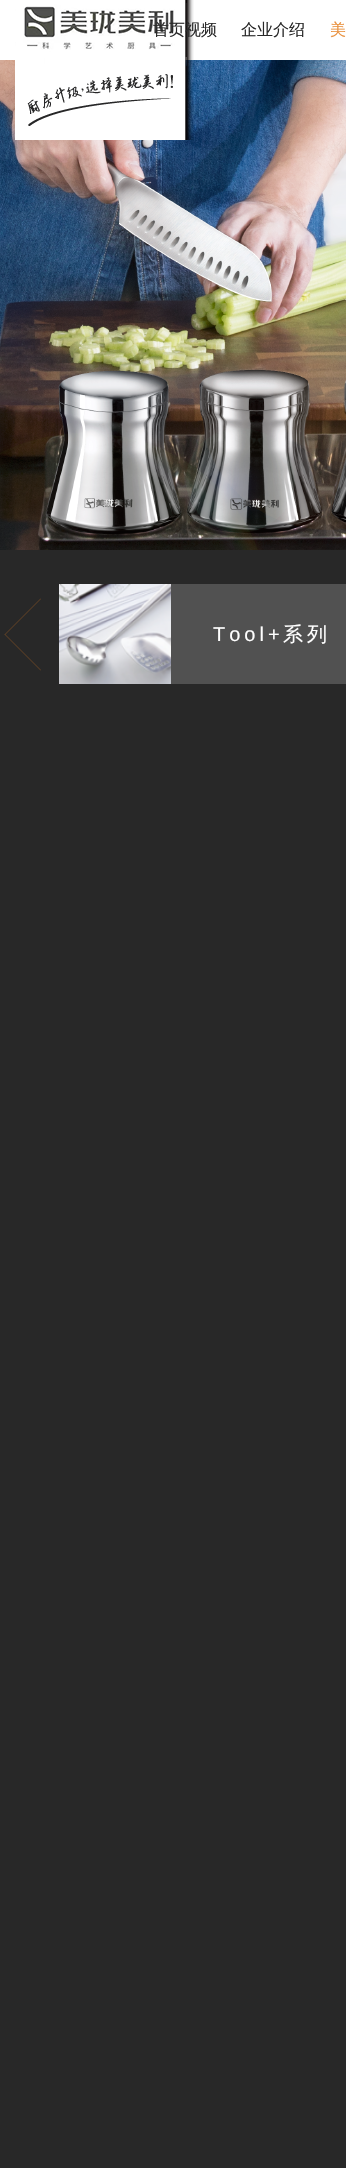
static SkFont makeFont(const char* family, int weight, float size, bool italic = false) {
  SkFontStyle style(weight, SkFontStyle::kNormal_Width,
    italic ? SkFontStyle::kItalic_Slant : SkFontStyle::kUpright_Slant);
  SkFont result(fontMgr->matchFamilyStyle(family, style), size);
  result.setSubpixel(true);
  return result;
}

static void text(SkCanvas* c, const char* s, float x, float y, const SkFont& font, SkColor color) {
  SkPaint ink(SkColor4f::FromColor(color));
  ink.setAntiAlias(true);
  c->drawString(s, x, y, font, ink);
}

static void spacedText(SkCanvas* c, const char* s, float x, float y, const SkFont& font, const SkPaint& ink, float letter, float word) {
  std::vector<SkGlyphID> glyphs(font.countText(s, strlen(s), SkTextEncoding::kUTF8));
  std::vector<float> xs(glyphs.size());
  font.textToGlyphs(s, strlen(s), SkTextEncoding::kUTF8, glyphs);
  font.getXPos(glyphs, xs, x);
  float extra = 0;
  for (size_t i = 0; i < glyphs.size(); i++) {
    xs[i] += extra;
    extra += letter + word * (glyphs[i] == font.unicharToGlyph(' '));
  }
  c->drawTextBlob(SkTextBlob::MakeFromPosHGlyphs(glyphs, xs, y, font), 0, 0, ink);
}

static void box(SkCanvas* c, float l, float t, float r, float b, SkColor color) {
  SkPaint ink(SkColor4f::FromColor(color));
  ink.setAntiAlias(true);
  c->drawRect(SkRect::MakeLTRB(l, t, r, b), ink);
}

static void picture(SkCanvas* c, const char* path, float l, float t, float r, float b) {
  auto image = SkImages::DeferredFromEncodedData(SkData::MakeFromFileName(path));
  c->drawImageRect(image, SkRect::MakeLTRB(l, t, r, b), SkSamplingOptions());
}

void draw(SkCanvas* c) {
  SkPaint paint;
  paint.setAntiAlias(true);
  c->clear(0xff282828);
  box(c, 0, 0, 346, 60, 0xffffffff);
  picture(c, "img_04.png", 0, 60, 346, 550);
  picture(c, "img_01.png", 15, 0, 194, 140);
  picture(c, "img_02.png", 27, 74, 173, 114);
  picture(c, "img_03.png", 28, 98, 171, 126);
  SkFont face1 = makeFont("WenQuanYi Zen Hei", 500, 16);
  text(c, "首页视频", 153, 35, face1, 0xff282828);
  text(c, "企业介绍", 241, 35, face1, 0xff282828);
  text(c, "美", 330, 35, face1, 0xffe9903c);
  paint.setColor(0xff634224);
  c->drawPath(SkPathBuilder().moveTo(5, 634).lineTo(41, 670).lineTo(40.5f, 670.5f).lineTo(4.5f, 634.5f).close().detach(), paint);
  c->drawPath(SkPathBuilder().moveTo(40.5f, 598.5f).lineTo(41, 599).lineTo(5, 635).lineTo(4.5f, 634.5f).close().detach(), paint);
  box(c, 171, 584, 346, 684, 0xff515151);
  picture(c, "img_05.png", 59, 584, 171, 684);
  SkFont face2 = makeFont("Liberation Sans", 400, 20);
  paint.setColor(0xffffffff);
  spacedText(c, "Tool+", 213, 641, face2, paint, 4, 0);
  SkFont face3 = makeFont("WenQuanYi Zen Hei", 500, 20);
  spacedText(c, "系列", 283, 641, face3, paint, 4, 0);
}
